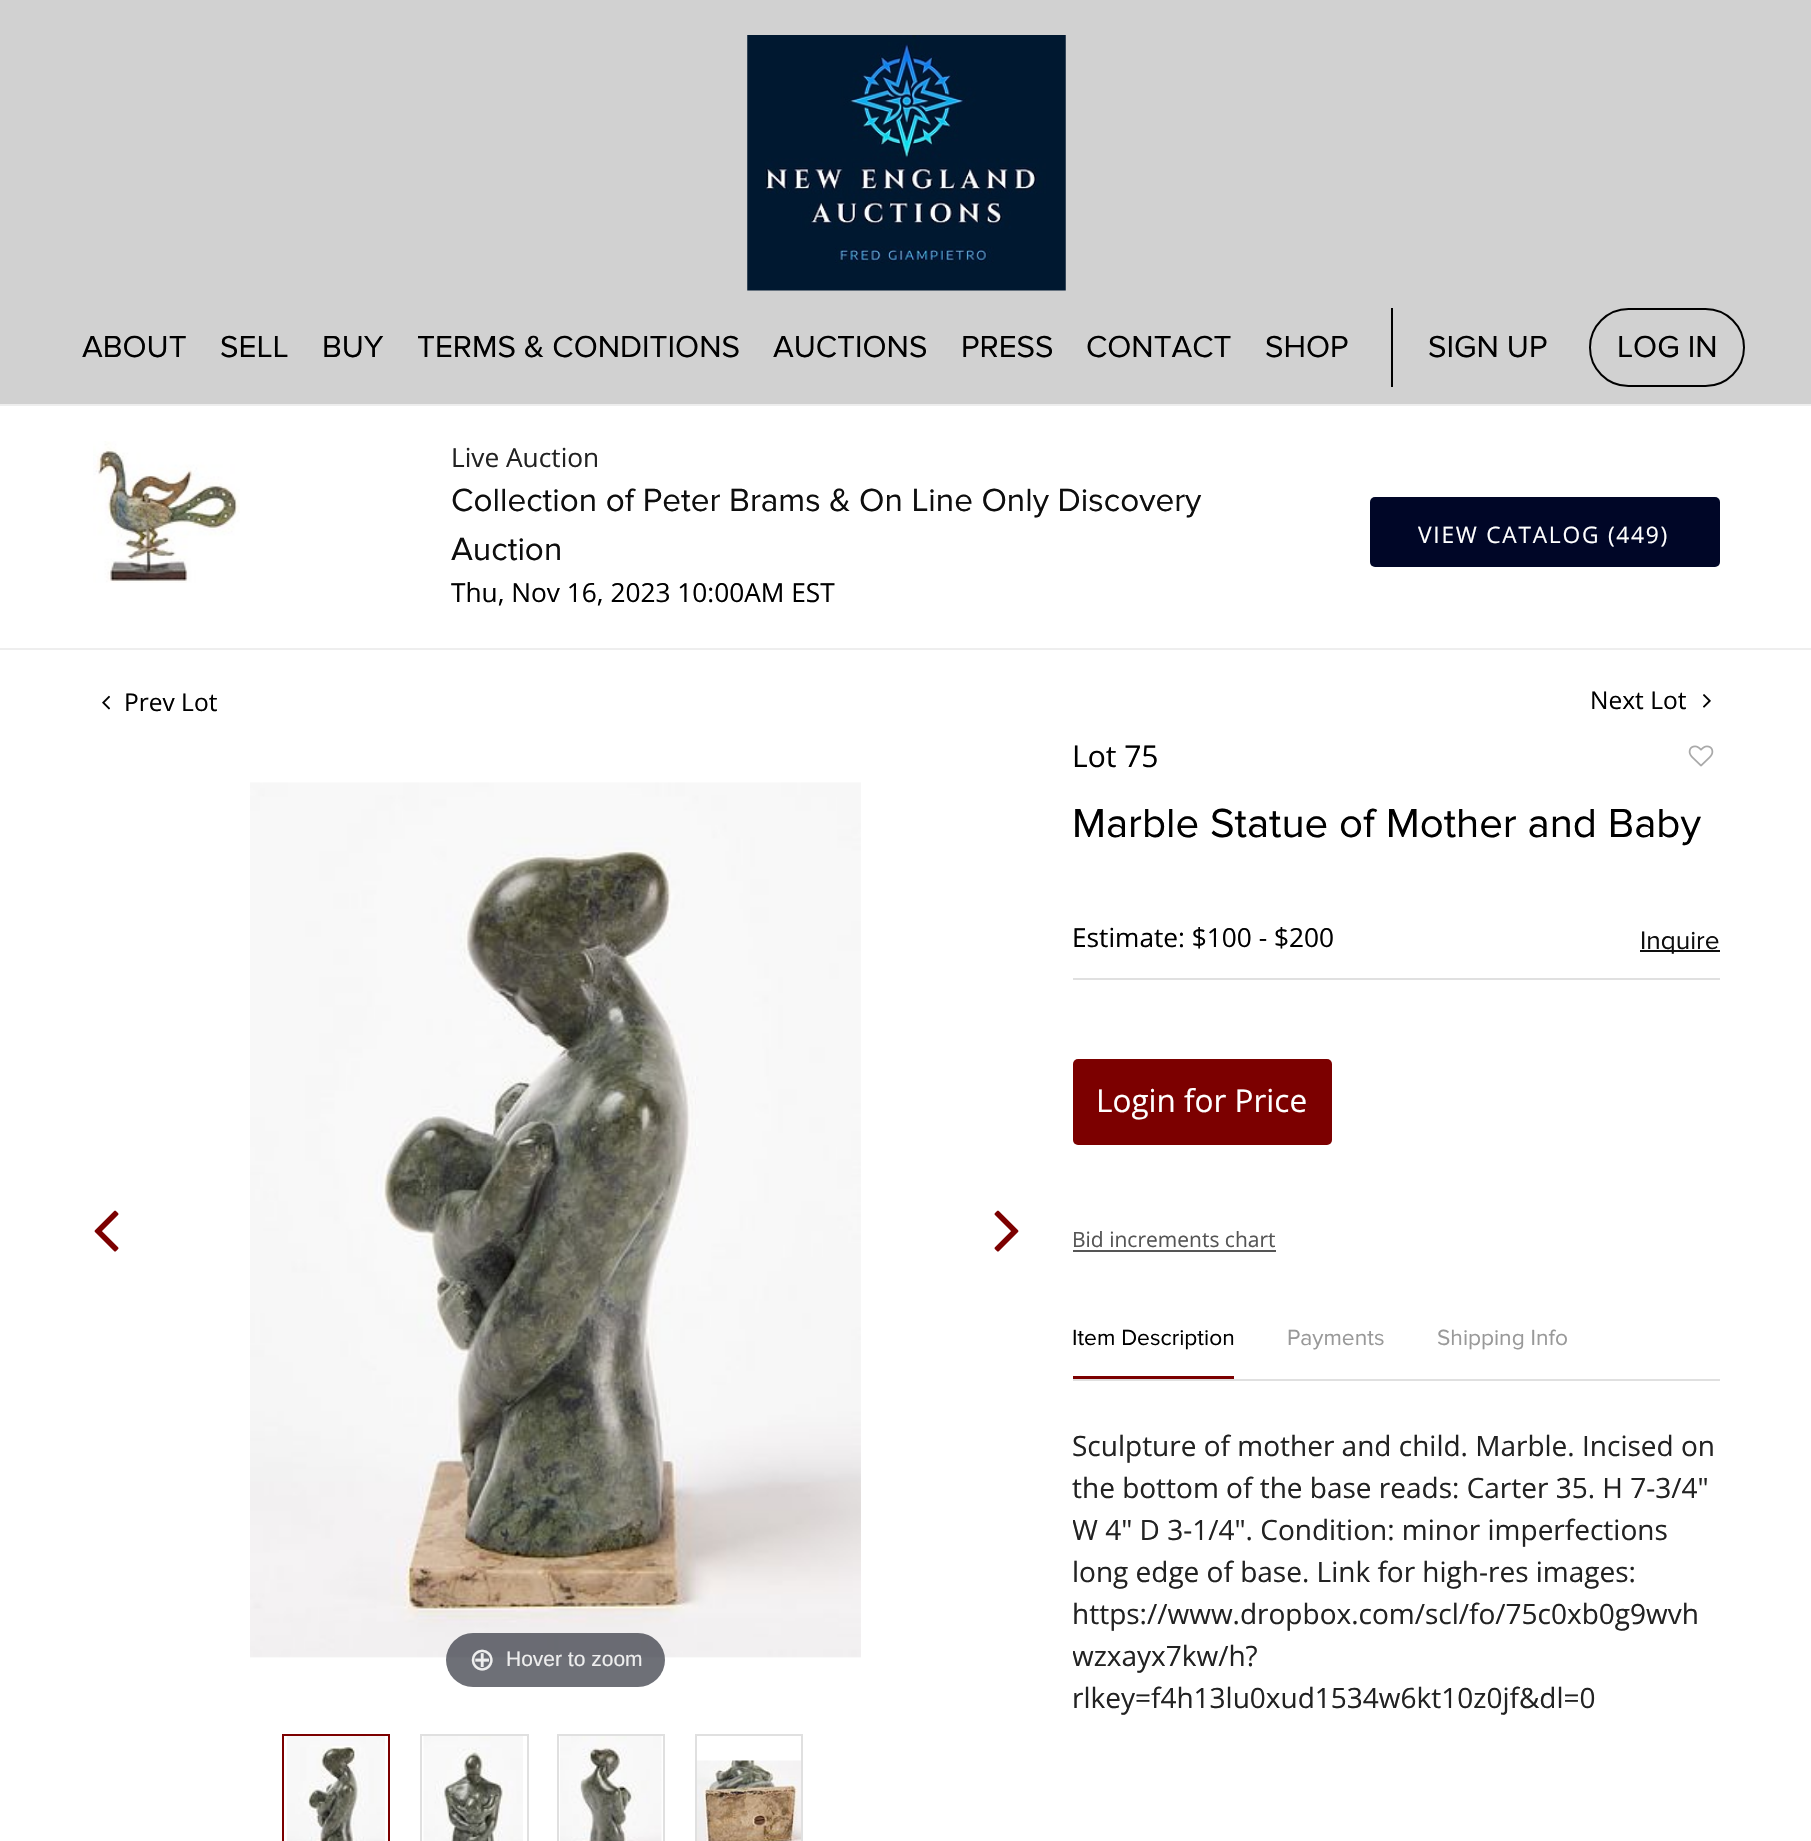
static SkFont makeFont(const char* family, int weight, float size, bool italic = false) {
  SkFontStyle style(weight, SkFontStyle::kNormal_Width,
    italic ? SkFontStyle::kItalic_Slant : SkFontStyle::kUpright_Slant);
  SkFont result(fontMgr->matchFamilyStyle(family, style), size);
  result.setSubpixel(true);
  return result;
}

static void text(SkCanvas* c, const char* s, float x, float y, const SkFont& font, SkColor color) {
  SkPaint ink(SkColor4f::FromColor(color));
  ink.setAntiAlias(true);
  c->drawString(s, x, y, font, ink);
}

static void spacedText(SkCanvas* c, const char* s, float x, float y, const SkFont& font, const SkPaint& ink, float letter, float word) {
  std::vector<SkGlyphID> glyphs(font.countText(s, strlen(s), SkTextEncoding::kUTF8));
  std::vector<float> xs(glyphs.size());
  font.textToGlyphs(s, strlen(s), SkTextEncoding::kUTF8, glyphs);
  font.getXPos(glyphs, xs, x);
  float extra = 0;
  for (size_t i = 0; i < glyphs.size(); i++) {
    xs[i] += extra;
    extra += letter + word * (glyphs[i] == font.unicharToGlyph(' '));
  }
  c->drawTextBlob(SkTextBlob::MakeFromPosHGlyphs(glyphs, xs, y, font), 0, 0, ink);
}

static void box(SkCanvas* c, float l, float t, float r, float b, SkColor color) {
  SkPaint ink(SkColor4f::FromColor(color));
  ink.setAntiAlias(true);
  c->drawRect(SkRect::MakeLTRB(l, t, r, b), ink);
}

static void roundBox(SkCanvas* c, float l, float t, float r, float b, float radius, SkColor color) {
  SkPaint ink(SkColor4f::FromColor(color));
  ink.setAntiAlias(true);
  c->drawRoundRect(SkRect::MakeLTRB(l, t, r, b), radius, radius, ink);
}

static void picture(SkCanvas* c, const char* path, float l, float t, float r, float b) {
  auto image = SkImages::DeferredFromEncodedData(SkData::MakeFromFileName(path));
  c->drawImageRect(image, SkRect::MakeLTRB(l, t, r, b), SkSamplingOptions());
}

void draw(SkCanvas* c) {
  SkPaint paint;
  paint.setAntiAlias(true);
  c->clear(0xffffffff);
  box(c, 0, 0, 1811, 404, 0xffd1d1d1);
  box(c, 0, 404, 1811, 406, 0xffeeeeee);
  picture(c, "img_01.png", 747, 35, 1066, 291);
  SkFont face1 = makeFont("Proxima Nova", 400, 31.5f);
  text(c, "ABOUT", 82, 357, face1, 0xff000000);
  text(c, "SELL", 220, 357, face1, 0xff000000);
  text(c, "BUY", 322, 357, face1, 0xff000000);
  text(c, "TERMS & CONDITIONS", 417, 357, face1, 0xff000000);
  text(c, "AUCTIONS", 773, 357, face1, 0xff000000);
  text(c, "PRESS", 961, 357, face1, 0xff000000);
  text(c, "CONTACT", 1086, 357, face1, 0xff000000);
  text(c, "SHOP", 1265, 357, face1, 0xff000000);
  box(c, 1391, 308, 1393, 387, 0xff000000);
  text(c, "SIGN UP", 1428, 357, face1, 0xff000000);
  paint.setStyle(SkPaint::kStroke_Style);
  paint.setStrokeWidth(2);
  paint.setColor(0xff000000);
  c->drawRoundRect(SkRect::MakeLTRB(1590, 309, 1744, 386), 38.5f, 38.5f, paint);
  text(c, "LOG IN", 1617, 357, face1, 0xff000000);
  picture(c, "img_02.png", 93, 441, 240, 583);
  SkFont face2 = makeFont("Open Sans", 400, 26.25f);
  text(c, "Live Auction", 451, 467, face2, 0xff222222);
  SkFont face3 = makeFont("Proxima Nova", 400, 33.25f);
  text(c, "Collection of Peter Brams & On Line Only Discovery", 451, 511, face3, 0xff0e0e0e);
  text(c, "Auction", 451, 560, face3, 0xff0e0e0e);
  text(c, "Thu, Nov 16, 2023 10:00AM EST", 451, 602, face2, 0xff000000);
  roundBox(c, 1370, 497, 1720, 567, 5, 0xff000627);
  SkFont face4 = makeFont("Open Sans", 400, 22.75f);
  paint.setStyle(SkPaint::kFill_Style);
  paint.setColor(0xffffffff);
  spacedText(c, "VIEW CATALOG (449)", 1418, 543, face4, paint, 1.75f, 0);
  box(c, 0, 648, 1811, 650, 0xffeeeeee);
  picture(c, "img_03.png", 102, 695, 110, 710);
  SkFont face5 = makeFont("Open Sans", 400, 24.5f);
  text(c, "Prev Lot", 124, 711, face5, 0xff000000);
  text(c, "Next Lot", 1590, 709, face5, 0xff000000);
  picture(c, "img_04.png", 1703, 694, 1711, 708);
  picture(c, "img_05.png", 94, 1210, 119, 1252);
  picture(c, "img_06.png", 994, 1210, 1019, 1252);
  picture(c, "img_07.png", 250, 782, 861, 1658);
  roundBox(c, 446, 1633, 665, 1687, 27, 0xb331333d);
  SkFont face6 = makeFont("DejaVu Sans", 400, 31.5f);
  text(c, "⊕", 469, 1670, face6, 0xffeeeeee);
  SkFont face7 = makeFont("Liberation Sans", 400, 21);
  text(c, "Hover to zoom", 506, 1666, face7, 0xffeeeeee);
  picture(c, "img_08.png", 287, 1736, 385, 1841);
  paint.setStyle(SkPaint::kStroke_Style);
  paint.setColor(0xff7c0000);
  c->drawRect(SkRect::MakeLTRB(283, 1735, 389, 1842), paint);
  picture(c, "img_09.png", 423, 1736, 523, 1841);
  paint.setColor(0xffe0e0e0);
  c->drawRect(SkRect::MakeLTRB(421, 1735, 528, 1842), paint);
  picture(c, "img_10.png", 560, 1736, 662, 1841);
  c->drawRect(SkRect::MakeLTRB(558, 1735, 664, 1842), paint);
  picture(c, "img_11.png", 697, 1760, 801, 1841);
  c->drawRect(SkRect::MakeLTRB(696, 1735, 802, 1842), paint);
  SkFont face8 = makeFont("Open Sans", 400, 30);
  text(c, "Lot 75", 1072, 767, face8, 0xff000000);
  picture(c, "img_12.png", 1688, 745, 1714, 767);
  SkFont face9 = makeFont("Proxima Nova", 400, 42);
  text(c, "Marble Statue of Mother and Baby", 1072, 837, face9, 0xff000000);
  box(c, 1073, 978, 1720, 980, 0xffe0e0e0);
  text(c, "Estimate: $100 - $200", 1072, 947, face2, 0xff000000);
  box(c, 1640, 950, 1720, 952, 0xff0e0e0e);
  SkFont face10 = makeFont("Proxima Nova", 400, 26.25f);
  text(c, "Inquire", 1640, 949, face10, 0xff0e0e0e);
  roundBox(c, 1073, 1059, 1332, 1145, 5, 0xff7c0000);
  SkFont face11 = makeFont("Open Sans", 400, 31.5f);
  text(c, "Login for Price", 1096, 1112, face11, 0xffffffff);
  SkFont face12 = makeFont("Open Sans", 400, 21);
  text(c, "Bid increments chart", 1072, 1247, face12, 0xff555555);
  box(c, 1073, 1250, 1276, 1252, 0xff555555);
  box(c, 1073, 1379, 1720, 1381, 0xffe0e0e0);
  SkFont face13 = makeFont("Proxima Nova", 400, 22.75f);
  text(c, "Item Description", 1072, 1345, face13, 0xff000000);
  box(c, 1073, 1376, 1234, 1379, 0xff7c0000);
  text(c, "Payments", 1287, 1345, face13, 0xff999999);
  text(c, "Shipping Info", 1437, 1345, face13, 0xff999999);
  SkFont face14 = makeFont("Open Sans", 400, 28);
  text(c, "Sculpture of mother and child. Marble. Incised on", 1072, 1456, face14, 0xff222222);
  text(c, "the bottom of the base reads: Carter 35. H 7-3/4\"", 1072, 1498, face14, 0xff222222);
  c->save();
  c->clipRect(SkRect::MakeLTRB(1073, 1407, 1720, 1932));
  text(c, "W 4\" D 3-1/4\". Condition: minor imperfections", 1072, 1540, face14, 0xff222222);
  c->restore();
  text(c, "long edge of base. Link for high-res images:", 1072, 1582, face14, 0xff222222);
  text(c, "https://www.dropbox.com/scl/fo/75c0xb0g9wvh", 1072, 1624, face14, 0xff222222);
  c->save();
  c->clipRect(SkRect::MakeLTRB(1073, 1407, 1720, 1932));
  text(c, "wzxayx7kw/h?", 1072, 1666, face14, 0xff222222);
  c->restore();
  text(c, "rlkey=f4h13lu0xud1534w6kt10z0jf&dl=0", 1072, 1708, face14, 0xff222222);
}
